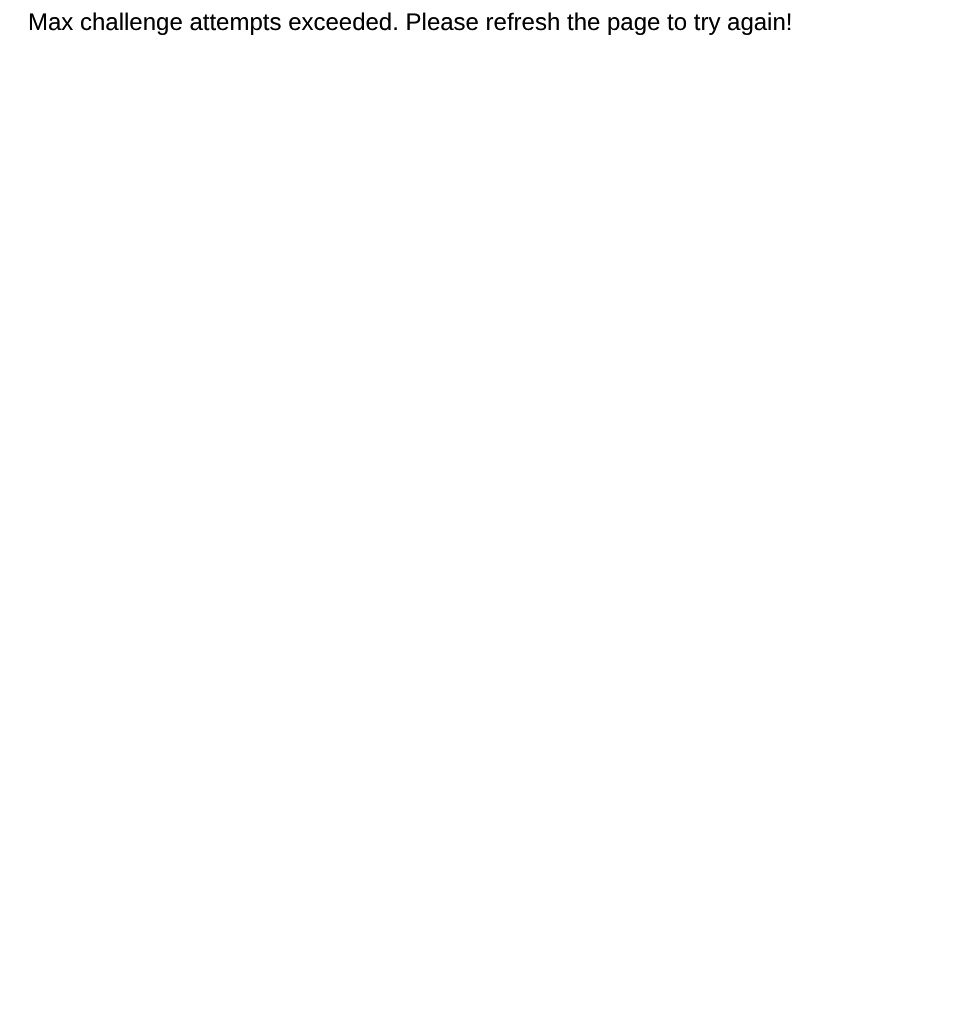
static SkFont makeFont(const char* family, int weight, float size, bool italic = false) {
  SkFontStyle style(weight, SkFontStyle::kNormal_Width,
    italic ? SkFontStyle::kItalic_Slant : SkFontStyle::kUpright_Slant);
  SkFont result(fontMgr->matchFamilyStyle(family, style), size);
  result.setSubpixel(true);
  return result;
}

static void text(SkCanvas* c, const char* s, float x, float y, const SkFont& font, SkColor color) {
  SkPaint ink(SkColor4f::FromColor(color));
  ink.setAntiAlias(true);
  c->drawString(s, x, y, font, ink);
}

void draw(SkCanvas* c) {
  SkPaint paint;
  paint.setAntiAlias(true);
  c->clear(0xffffffff);
  SkFont face1 = makeFont("Liberation Sans", 400, 24);
  text(c, "Max challenge attempts exceeded. Please refresh the page to try again!", 28, 30, face1, 0xff000000);
}
